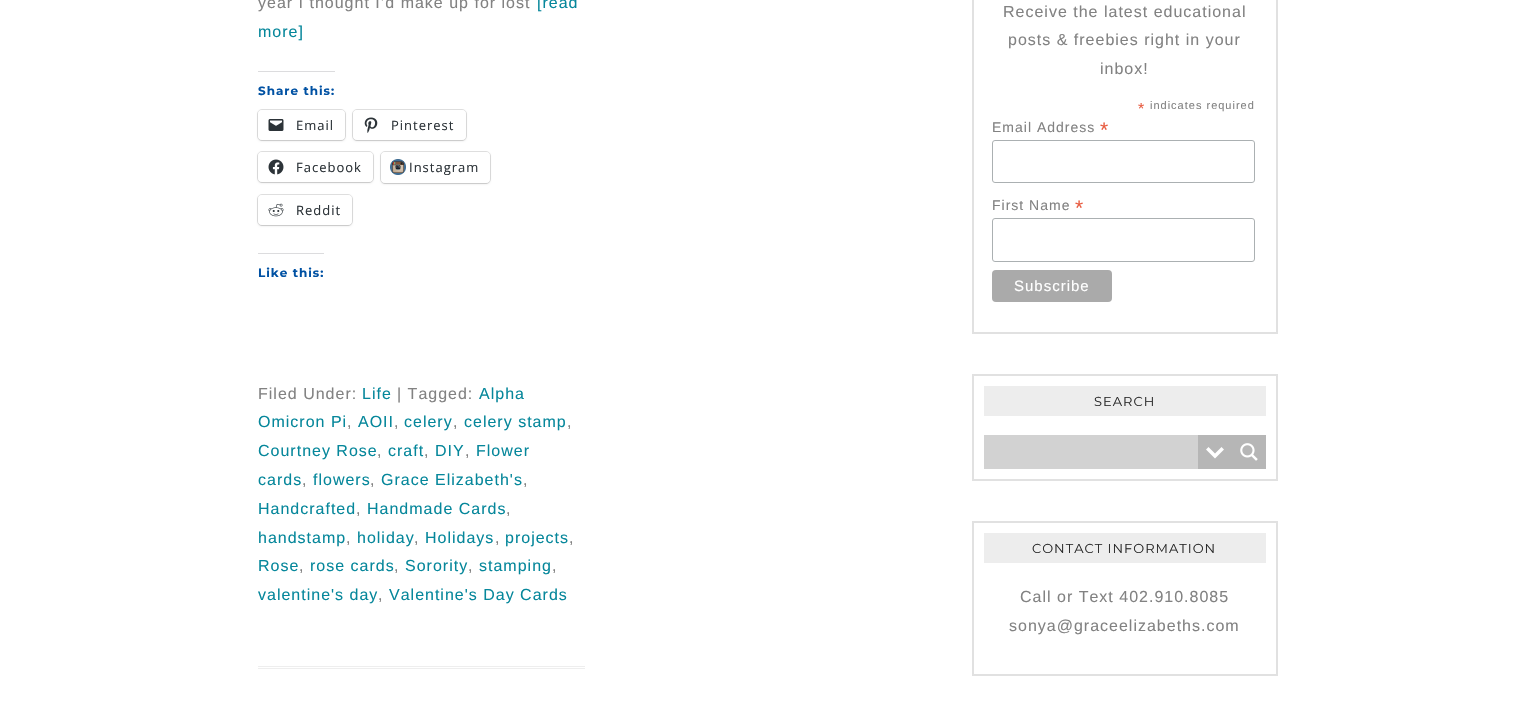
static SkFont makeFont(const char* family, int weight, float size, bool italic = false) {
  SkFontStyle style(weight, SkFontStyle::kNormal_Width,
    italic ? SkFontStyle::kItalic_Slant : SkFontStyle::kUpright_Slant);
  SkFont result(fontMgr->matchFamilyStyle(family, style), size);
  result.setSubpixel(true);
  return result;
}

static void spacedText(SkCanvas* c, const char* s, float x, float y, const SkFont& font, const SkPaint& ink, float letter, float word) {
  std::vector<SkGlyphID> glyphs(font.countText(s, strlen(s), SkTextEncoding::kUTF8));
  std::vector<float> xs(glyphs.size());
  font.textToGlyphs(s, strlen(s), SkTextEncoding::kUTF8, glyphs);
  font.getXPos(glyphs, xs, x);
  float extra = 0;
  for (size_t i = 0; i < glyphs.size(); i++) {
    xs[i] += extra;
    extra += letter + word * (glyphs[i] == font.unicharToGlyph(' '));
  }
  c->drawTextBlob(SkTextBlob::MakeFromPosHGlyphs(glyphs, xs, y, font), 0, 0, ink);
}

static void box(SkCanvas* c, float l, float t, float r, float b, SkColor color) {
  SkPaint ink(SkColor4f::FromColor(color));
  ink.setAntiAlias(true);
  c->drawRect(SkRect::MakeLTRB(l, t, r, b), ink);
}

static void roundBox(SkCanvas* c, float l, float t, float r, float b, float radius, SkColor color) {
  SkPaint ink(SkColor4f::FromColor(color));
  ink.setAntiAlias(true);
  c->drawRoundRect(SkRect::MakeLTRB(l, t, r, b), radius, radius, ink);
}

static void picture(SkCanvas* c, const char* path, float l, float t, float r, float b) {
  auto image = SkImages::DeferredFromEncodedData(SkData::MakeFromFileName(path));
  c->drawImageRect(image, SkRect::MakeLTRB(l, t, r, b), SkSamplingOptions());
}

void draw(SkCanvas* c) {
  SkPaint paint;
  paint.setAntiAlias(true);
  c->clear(0xffffffff);
  SkFont face1 = makeFont("Liberation Sans", 400, 16);
  paint.setColor(0xff828282);
  spacedText(c, "year I thought I’d make up for lost", 258, 8, face1, paint, 1, 0);
  paint.setColor(0xff06879b);
  spacedText(c, "[read", 537, 8, face1, paint, 1, 0);
  spacedText(c, "more]", 258, 37, face1, paint, 1, 0);
  box(c, 258, 71, 335, 72, 0xffdcdcde);
  SkFont face2 = makeFont("Montserrat", 700, 12);
  paint.setColor(0xff0051a3);
  spacedText(c, "Share this:", 258, 95, face2, paint, 1, 0);
  paint.setStyle(SkPaint::kStroke_Style);
  paint.setStrokeWidth(1);
  paint.setColor(0xffe0e0e0);
  c->drawRoundRect(SkRect::MakeLTRB(257.5f, 109.5f, 345.5f, 140.5f), 4.5f, 4.5f, paint);
  paint.setStyle(SkPaint::kFill_Style);
  paint.setColor(0x1f000000);
  paint.setMaskFilter(SkMaskFilter::MakeBlur(kNormal_SkBlurStyle, 1));
  c->drawRoundRect(SkRect::MakeLTRB(258, 111, 345, 141), 4, 4, paint);
  paint.setMaskFilter(nullptr);
  roundBox(c, 258, 110, 345, 140, 4, 0xffffffff);
  picture(c, "img_01.png", 268, 119, 284, 131);
  SkFont face3 = makeFont("Open Sans", 400, 13);
  paint.setColor(0xff2c3338);
  spacedText(c, "Email", 296, 130, face3, paint, 1, 0);
  paint.setStyle(SkPaint::kStroke_Style);
  paint.setColor(0xffe0e0e0);
  c->drawRoundRect(SkRect::MakeLTRB(352.5f, 109.5f, 466.5f, 140.5f), 4.5f, 4.5f, paint);
  paint.setStyle(SkPaint::kFill_Style);
  paint.setColor(0x1f000000);
  paint.setMaskFilter(SkMaskFilter::MakeBlur(kNormal_SkBlurStyle, 1));
  c->drawRoundRect(SkRect::MakeLTRB(353, 111, 466, 141), 4, 4, paint);
  paint.setMaskFilter(nullptr);
  roundBox(c, 353, 110, 466, 140, 4, 0xffffffff);
  picture(c, "img_02.png", 364, 117, 378, 133);
  paint.setColor(0xff2c3338);
  spacedText(c, "Pinterest", 391, 130, face3, paint, 1, 0);
  paint.setStyle(SkPaint::kStroke_Style);
  paint.setColor(0xffe0e0e0);
  c->drawRoundRect(SkRect::MakeLTRB(257.5f, 151.5f, 373.5f, 182.5f), 4.5f, 4.5f, paint);
  paint.setStyle(SkPaint::kFill_Style);
  paint.setColor(0x1f000000);
  paint.setMaskFilter(SkMaskFilter::MakeBlur(kNormal_SkBlurStyle, 1));
  c->drawRoundRect(SkRect::MakeLTRB(258, 153, 373, 183), 4, 4, paint);
  paint.setMaskFilter(nullptr);
  roundBox(c, 258, 152, 373, 182, 4, 0xffffffff);
  picture(c, "img_03.png", 268, 159, 284, 175);
  paint.setColor(0xff2c3338);
  spacedText(c, "Facebook", 296, 172, face3, paint, 1, 0);
  paint.setStyle(SkPaint::kStroke_Style);
  paint.setColor(0xffe0e0e0);
  c->drawRoundRect(SkRect::MakeLTRB(380.5f, 151.5f, 490.5f, 183.5f), 4.5f, 4.5f, paint);
  paint.setStyle(SkPaint::kFill_Style);
  paint.setColor(0x1f000000);
  paint.setMaskFilter(SkMaskFilter::MakeBlur(kNormal_SkBlurStyle, 1));
  c->drawRoundRect(SkRect::MakeLTRB(381, 153, 490, 184), 4, 4, paint);
  paint.setMaskFilter(nullptr);
  roundBox(c, 381, 152, 490, 183, 4, 0xffffffff);
  picture(c, "img_04.png", 390, 159, 406, 175);
  paint.setColor(0xff2c3338);
  spacedText(c, "Instagram", 409, 172, face3, paint, 1, 0);
  paint.setStyle(SkPaint::kStroke_Style);
  paint.setColor(0xffe0e0e0);
  c->drawRoundRect(SkRect::MakeLTRB(257.5f, 194.5f, 352.5f, 225.5f), 4.5f, 4.5f, paint);
  paint.setStyle(SkPaint::kFill_Style);
  paint.setColor(0x1f000000);
  paint.setMaskFilter(SkMaskFilter::MakeBlur(kNormal_SkBlurStyle, 1));
  c->drawRoundRect(SkRect::MakeLTRB(258, 196, 352, 226), 4, 4, paint);
  paint.setMaskFilter(nullptr);
  roundBox(c, 258, 195, 352, 225, 4, 0xffffffff);
  picture(c, "img_05.png", 268, 203, 284, 217);
  paint.setColor(0xff2c3338);
  spacedText(c, "Reddit", 296, 215, face3, paint, 1, 0);
  box(c, 258, 253, 324, 254, 0xffdcdcde);
  paint.setColor(0xff0051a3);
  spacedText(c, "Like this:", 258, 277, face2, paint, 1, 0);
  box(c, 258, 666, 585, 667, 0xffeeeeee);
  box(c, 258, 668, 585, 669, 0xffeeeeee);
  paint.setColor(0xff828282);
  spacedText(c, "Filed Under:", 258, 399, face1, paint, 1, 0);
  paint.setColor(0xff06879b);
  spacedText(c, "Life", 362, 399, face1, paint, 1, 0);
  paint.setColor(0xff828282);
  spacedText(c, "| Tagged:", 397, 399, face1, paint, 1, 0);
  paint.setColor(0xff06879b);
  spacedText(c, "Alpha", 479, 399, face1, paint, 1, 0);
  spacedText(c, "Omicron Pi", 258, 427, face1, paint, 1, 0);
  paint.setColor(0xff828282);
  spacedText(c, ",", 347, 427, face1, paint, 1, 0);
  paint.setColor(0xff06879b);
  spacedText(c, "AOII", 358, 427, face1, paint, 1, 0);
  paint.setColor(0xff828282);
  spacedText(c, ",", 394, 427, face1, paint, 1, 0);
  paint.setColor(0xff06879b);
  spacedText(c, "celery", 404, 427, face1, paint, 1, 0);
  paint.setColor(0xff828282);
  spacedText(c, ",", 453, 427, face1, paint, 1, 0);
  paint.setColor(0xff06879b);
  spacedText(c, "celery stamp", 464, 427, face1, paint, 1, 0);
  paint.setColor(0xff828282);
  spacedText(c, ",", 567, 427, face1, paint, 1, 0);
  paint.setColor(0xff06879b);
  spacedText(c, "Courtney Rose", 258, 456, face1, paint, 1, 0);
  spacedText(c, "craft", 388, 456, face1, paint, 1, 0);
  spacedText(c, "DIY", 435, 456, face1, paint, 1, 0);
  spacedText(c, "Flower", 476, 456, face1, paint, 1, 0);
  paint.setColor(0xff828282);
  spacedText(c, ",", 377, 456, face1, paint, 1, 0);
  spacedText(c, ",", 424, 456, face1, paint, 1, 0);
  spacedText(c, ",", 465, 456, face1, paint, 1, 0);
  paint.setColor(0xff06879b);
  spacedText(c, "cards", 258, 485, face1, paint, 1, 0);
  paint.setColor(0xff828282);
  spacedText(c, ",", 302, 485, face1, paint, 1, 0);
  paint.setColor(0xff06879b);
  spacedText(c, "flowers", 313, 485, face1, paint, 1, 0);
  paint.setColor(0xff828282);
  spacedText(c, ",", 370, 485, face1, paint, 1, 0);
  paint.setColor(0xff06879b);
  spacedText(c, "Grace Elizabeth's", 381, 485, face1, paint, 1, 0);
  paint.setColor(0xff828282);
  spacedText(c, ",", 523, 485, face1, paint, 1, 0);
  paint.setColor(0xff06879b);
  spacedText(c, "Handcrafted", 258, 514, face1, paint, 1, 0);
  paint.setColor(0xff828282);
  spacedText(c, ",", 356, 514, face1, paint, 1, 0);
  paint.setColor(0xff06879b);
  spacedText(c, "Handmade Cards", 367, 514, face1, paint, 1, 0);
  paint.setColor(0xff828282);
  spacedText(c, ",", 506, 514, face1, paint, 1, 0);
  paint.setColor(0xff06879b);
  spacedText(c, "handstamp", 258, 543, face1, paint, 1, 0);
  paint.setColor(0xff828282);
  spacedText(c, ",", 346, 543, face1, paint, 1, 0);
  paint.setColor(0xff06879b);
  spacedText(c, "holiday", 357, 543, face1, paint, 1, 0);
  paint.setColor(0xff828282);
  spacedText(c, ",", 414, 543, face1, paint, 1, 0);
  paint.setColor(0xff06879b);
  spacedText(c, "Holidays", 425, 543, face1, paint, 1, 0);
  paint.setColor(0xff828282);
  spacedText(c, ",", 495, 543, face1, paint, 1, 0);
  paint.setColor(0xff06879b);
  spacedText(c, "projects", 505, 543, face1, paint, 1, 0);
  paint.setColor(0xff828282);
  spacedText(c, ",", 569, 543, face1, paint, 1, 0);
  paint.setColor(0xff06879b);
  spacedText(c, "Rose", 258, 571, face1, paint, 1, 0);
  paint.setColor(0xff828282);
  spacedText(c, ",", 299, 571, face1, paint, 1, 0);
  paint.setColor(0xff06879b);
  spacedText(c, "rose cards", 310, 571, face1, paint, 1, 0);
  paint.setColor(0xff828282);
  spacedText(c, ",", 394, 571, face1, paint, 1, 0);
  paint.setColor(0xff06879b);
  spacedText(c, "Sorority", 405, 571, face1, paint, 1, 0);
  paint.setColor(0xff828282);
  spacedText(c, ",", 468, 571, face1, paint, 1, 0);
  paint.setColor(0xff06879b);
  spacedText(c, "stamping", 479, 571, face1, paint, 1, 0);
  paint.setColor(0xff828282);
  spacedText(c, ",", 552, 571, face1, paint, 1, 0);
  paint.setColor(0xff06879b);
  spacedText(c, "valentine's day", 258, 600, face1, paint, 1, 0);
  paint.setColor(0xff828282);
  spacedText(c, ",", 378, 600, face1, paint, 1, 0);
  paint.setColor(0xff06879b);
  spacedText(c, "Valentine's Day Cards", 389, 600, face1, paint, 1, 0);
  paint.setStyle(SkPaint::kStroke_Style);
  paint.setStrokeWidth(2);
  paint.setColor(0xffe1e1e1);
  c->drawRect(SkRect::MakeLTRB(973, -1, 1277, 333), paint);
  paint.setStyle(SkPaint::kFill_Style);
  paint.setColor(0xff828282);
  spacedText(c, "Receive the latest educational", 1003, 17, face1, paint, 1, 0);
  spacedText(c, "posts & freebies right in your", 1008, 45, face1, paint, 1, 0);
  spacedText(c, "inbox!", 1100, 74, face1, paint, 1, 0);
  paint.setColor(0xffe85c41);
  spacedText(c, "*", 1138, 114, face1, paint, 1, 0);
  SkFont face4 = makeFont("Liberation Sans", 400, 11);
  paint.setColor(0xff828282);
  spacedText(c, "indicates required", 1150, 109, face4, paint, 1, 0);
  SkFont face5 = makeFont("Liberation Sans", 400, 14);
  spacedText(c, "Email Address", 992, 132, face5, paint, 1, 0);
  SkFont face6 = makeFont("Liberation Sans", 400, 21);
  paint.setColor(0xffe85c41);
  spacedText(c, "*", 1100, 137, face6, paint, 1, 0);
  paint.setStyle(SkPaint::kStroke_Style);
  paint.setStrokeWidth(1);
  paint.setColor(0xffabb0b2);
  c->drawRoundRect(SkRect::MakeLTRB(992.5f, 140.5f, 1254.5f, 182.5f), 2.5f, 2.5f, paint);
  paint.setStyle(SkPaint::kFill_Style);
  paint.setColor(0xff828282);
  spacedText(c, "First Name", 992, 210, face5, paint, 1, 0);
  paint.setColor(0xffe85c41);
  spacedText(c, "*", 1075, 215, face6, paint, 1, 0);
  paint.setStyle(SkPaint::kStroke_Style);
  paint.setColor(0xffabb0b2);
  c->drawRoundRect(SkRect::MakeLTRB(992.5f, 218.5f, 1254.5f, 261.5f), 2.5f, 2.5f, paint);
  roundBox(c, 992, 270, 1112, 302, 4, 0xffaaaaaa);
  SkFont face7 = makeFont("Liberation Sans", 400, 15);
  paint.setStyle(SkPaint::kFill_Style);
  paint.setColor(0xffffffff);
  spacedText(c, "Subscribe", 1014, 291, face7, paint, 1, 0);
  paint.setStyle(SkPaint::kStroke_Style);
  paint.setStrokeWidth(2);
  paint.setColor(0xffe1e1e1);
  c->drawRect(SkRect::MakeLTRB(973, 375, 1277, 480), paint);
  box(c, 984, 386, 1266, 416, 0xffededed);
  SkFont face8 = makeFont("Montserrat", 400, 13);
  paint.setStyle(SkPaint::kFill_Style);
  paint.setColor(0xff2b2b2b);
  spacedText(c, "SEARCH", 1094, 406, face8, paint, 1, 0);
  box(c, 984, 435, 1198, 469, 0xffd2d2d2);
  box(c, 1198, 435, 1266, 469, 0xffb6b6b6);
  paint.setColor(0xffffffff);
  c->drawPath(SkPathBuilder().moveTo(1221.5f, 447).lineTo(1224, 449.5f).lineTo(1215, 458.5f).lineTo(1206, 449.5f).lineTo(1208.5f, 447).lineTo(1215, 453.5f).close().detach(), paint);
  picture(c, "img_06.png", 1240, 443, 1258, 461);
  paint.setStyle(SkPaint::kStroke_Style);
  paint.setColor(0xffe1e1e1);
  c->drawRect(SkRect::MakeLTRB(973, 522, 1277, 675), paint);
  box(c, 984, 533, 1266, 563, 0xffededed);
  paint.setStyle(SkPaint::kFill_Style);
  paint.setColor(0xff2b2b2b);
  spacedText(c, "CONTACT INFORMATION", 1032, 553, face8, paint, 1, 0);
  paint.setColor(0xff828282);
  spacedText(c, "Call or Text 402.910.8085", 1020, 602, face1, paint, 1, 0);
  spacedText(c, "sonya@graceelizabeths.com", 1009, 631, face1, paint, 1, 0);
}
